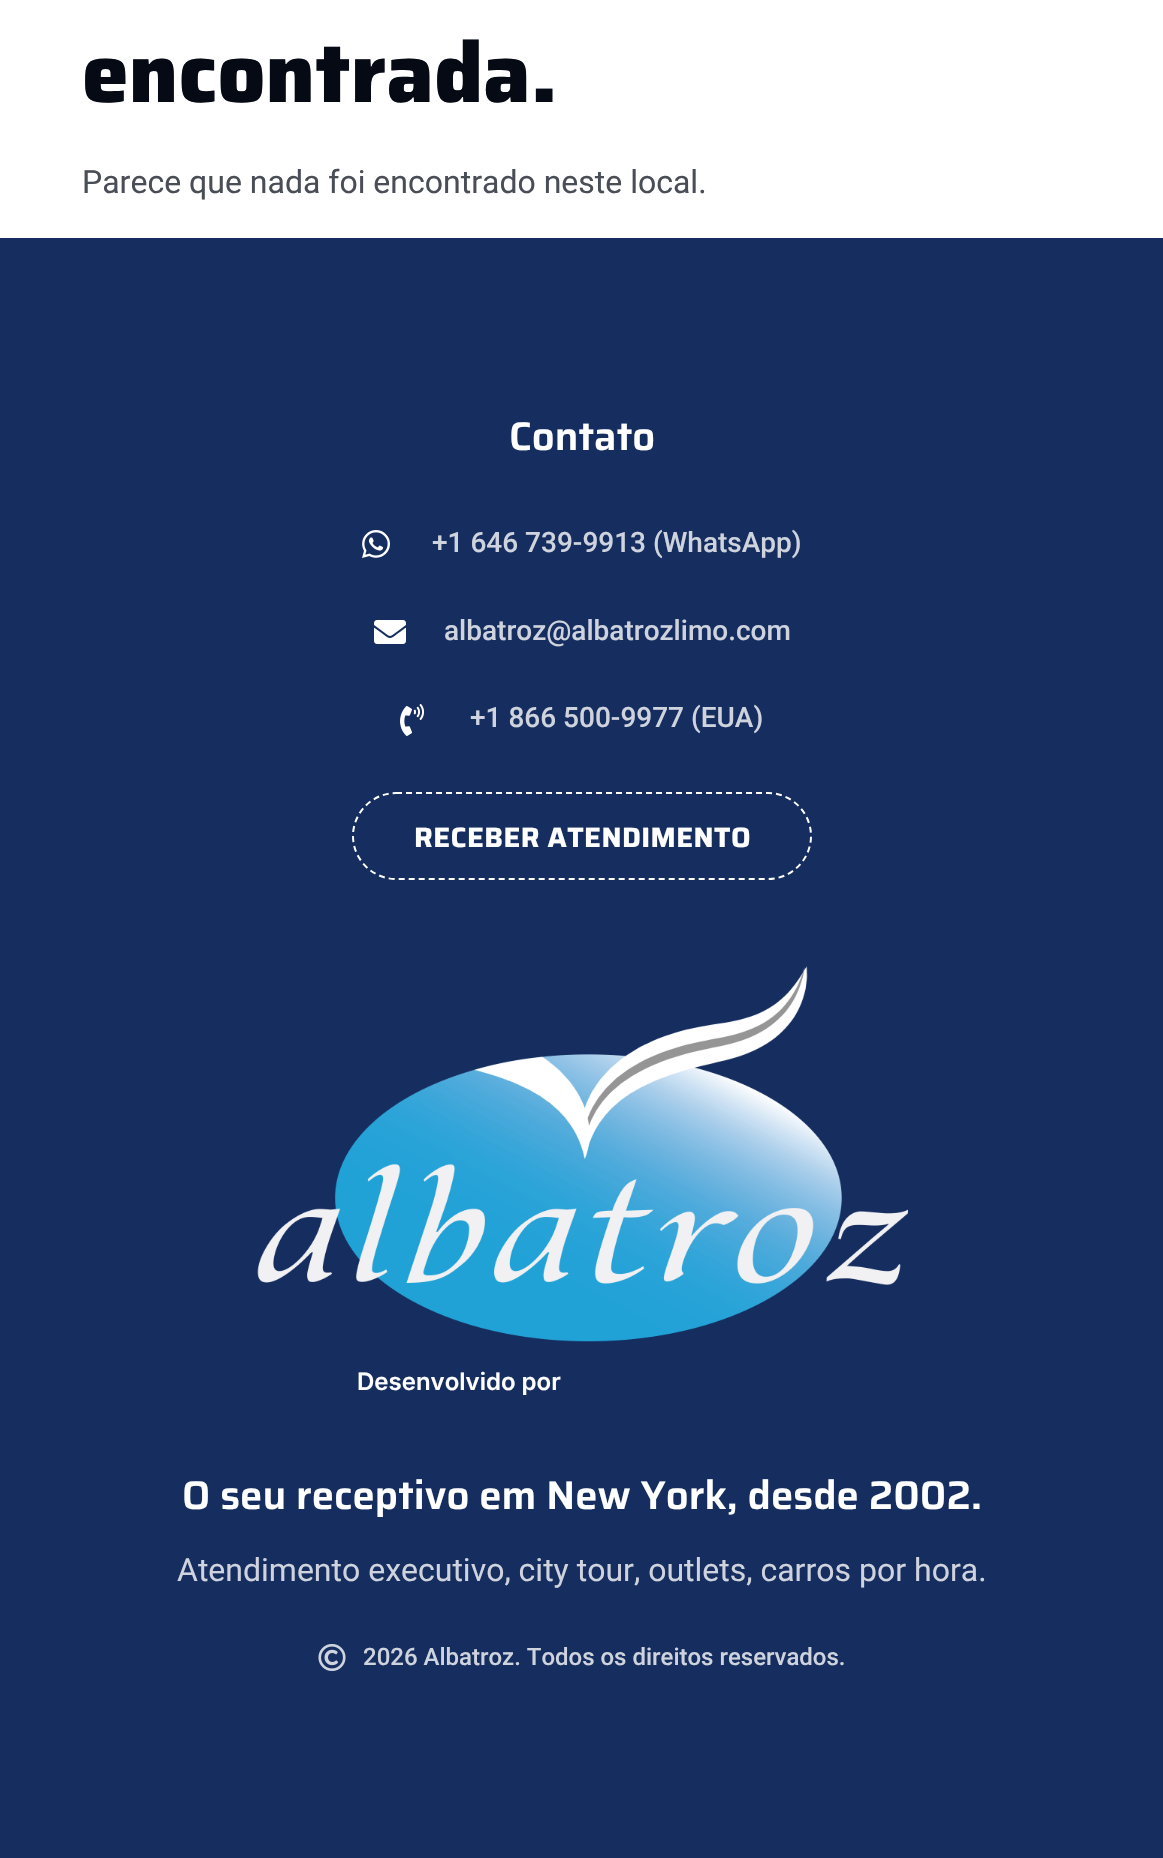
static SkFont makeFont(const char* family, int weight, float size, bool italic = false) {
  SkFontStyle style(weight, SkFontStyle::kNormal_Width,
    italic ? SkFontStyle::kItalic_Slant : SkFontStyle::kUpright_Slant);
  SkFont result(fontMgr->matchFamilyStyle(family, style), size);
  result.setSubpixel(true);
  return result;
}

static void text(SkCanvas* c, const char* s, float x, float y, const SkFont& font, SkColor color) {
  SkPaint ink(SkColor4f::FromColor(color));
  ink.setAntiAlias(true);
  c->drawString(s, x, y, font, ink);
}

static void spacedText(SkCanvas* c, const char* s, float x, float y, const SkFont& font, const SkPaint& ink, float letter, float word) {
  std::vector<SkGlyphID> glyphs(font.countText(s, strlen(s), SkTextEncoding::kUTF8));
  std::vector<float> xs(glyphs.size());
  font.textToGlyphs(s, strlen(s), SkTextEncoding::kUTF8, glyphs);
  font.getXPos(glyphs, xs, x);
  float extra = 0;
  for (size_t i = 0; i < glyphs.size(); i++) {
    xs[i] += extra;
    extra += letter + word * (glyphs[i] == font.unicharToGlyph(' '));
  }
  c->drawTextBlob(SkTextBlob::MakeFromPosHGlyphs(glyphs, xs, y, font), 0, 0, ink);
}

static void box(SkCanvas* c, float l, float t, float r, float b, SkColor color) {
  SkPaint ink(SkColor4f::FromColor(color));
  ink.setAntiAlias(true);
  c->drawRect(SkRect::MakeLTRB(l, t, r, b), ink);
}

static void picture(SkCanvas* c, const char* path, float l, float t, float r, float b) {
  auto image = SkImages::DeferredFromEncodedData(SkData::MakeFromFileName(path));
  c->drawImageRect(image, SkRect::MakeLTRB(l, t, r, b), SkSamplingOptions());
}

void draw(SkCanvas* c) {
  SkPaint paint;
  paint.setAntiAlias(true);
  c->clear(0xffffffff);
  SkFont face1 = makeFont("Saira", 800, 84);
  text(c, "encontrada.", 82, 102, face1, 0xff050a15);
  SkFont face2 = makeFont("Roboto", 400, 32);
  text(c, "Parece que nada foi encontrado neste local.", 82, 193, face2, 0xff494d56);
  box(c, 0, 238, 1163, 1858, 0xff152d5f);
  SkFont face3 = makeFont("Saira", 600, 40);
  text(c, "Contato", 509, 450, face3, 0xffffffff);
  picture(c, "img_01.png", 362, 530, 390, 558);
  SkFont face4 = makeFont("Roboto", 500, 28);
  text(c, "+1 646 739-9913 (WhatsApp)", 432, 552, face4, 0xffced3dd);
  picture(c, "img_02.png", 374, 620, 406, 644);
  text(c, "albatroz@albatrozlimo.com", 444, 640, face4, 0xffced3dd);
  picture(c, "img_03.png", 400, 704, 425, 736);
  text(c, "+1 866 500-9977 (EUA)", 470, 727, face4, 0xffced3dd);
  paint.setStyle(SkPaint::kStroke_Style);
  paint.setStrokeWidth(2);
  paint.setColor(0xffffffff);
  paint.setPathEffect(SkDashPathEffect::Make({{6, 4}}, 0));
  c->drawPath(SkPathBuilder().moveTo(396, 793).lineTo(768, 793).cubicTo(791.5f, 793, 811, 812.5f, 811, 836).cubicTo(811, 859.5f, 791.5f, 879, 768, 879).lineTo(396, 879).cubicTo(372.5f, 879, 353, 859.5f, 353, 836).cubicTo(353, 812.5f, 372.5f, 793, 396, 793).close().detach(), paint);
  paint.setPathEffect(nullptr);
  SkFont face5 = makeFont("Saira", 700, 28);
  paint.setStyle(SkPaint::kFill_Style);
  spacedText(c, "RECEBER ATENDIMENTO", 414, 847, face5, paint, 0.4f, 0);
  SkFont face6 = makeFont("Inter", 600, 24);
  text(c, "Desenvolvido por", 357, 1390, face6, 0xffffffff);
  picture(c, "img_04.png", 257, 966, 908, 1342);
  text(c, "O seu receptivo em New York, desde 2002.", 182, 1509, face3, 0xffffffff);
  text(c, "Atendimento executivo, city tour, outlets, carros por hora.", 177, 1581, face2, 0xffced3dd);
  picture(c, "img_05.png", 318, 1644, 346, 1671);
  SkFont face7 = makeFont("Roboto", 500, 24);
  text(c, "2026 Albatroz. Todos os direitos reservados.", 363, 1665, face7, 0xffced3dd);
}
